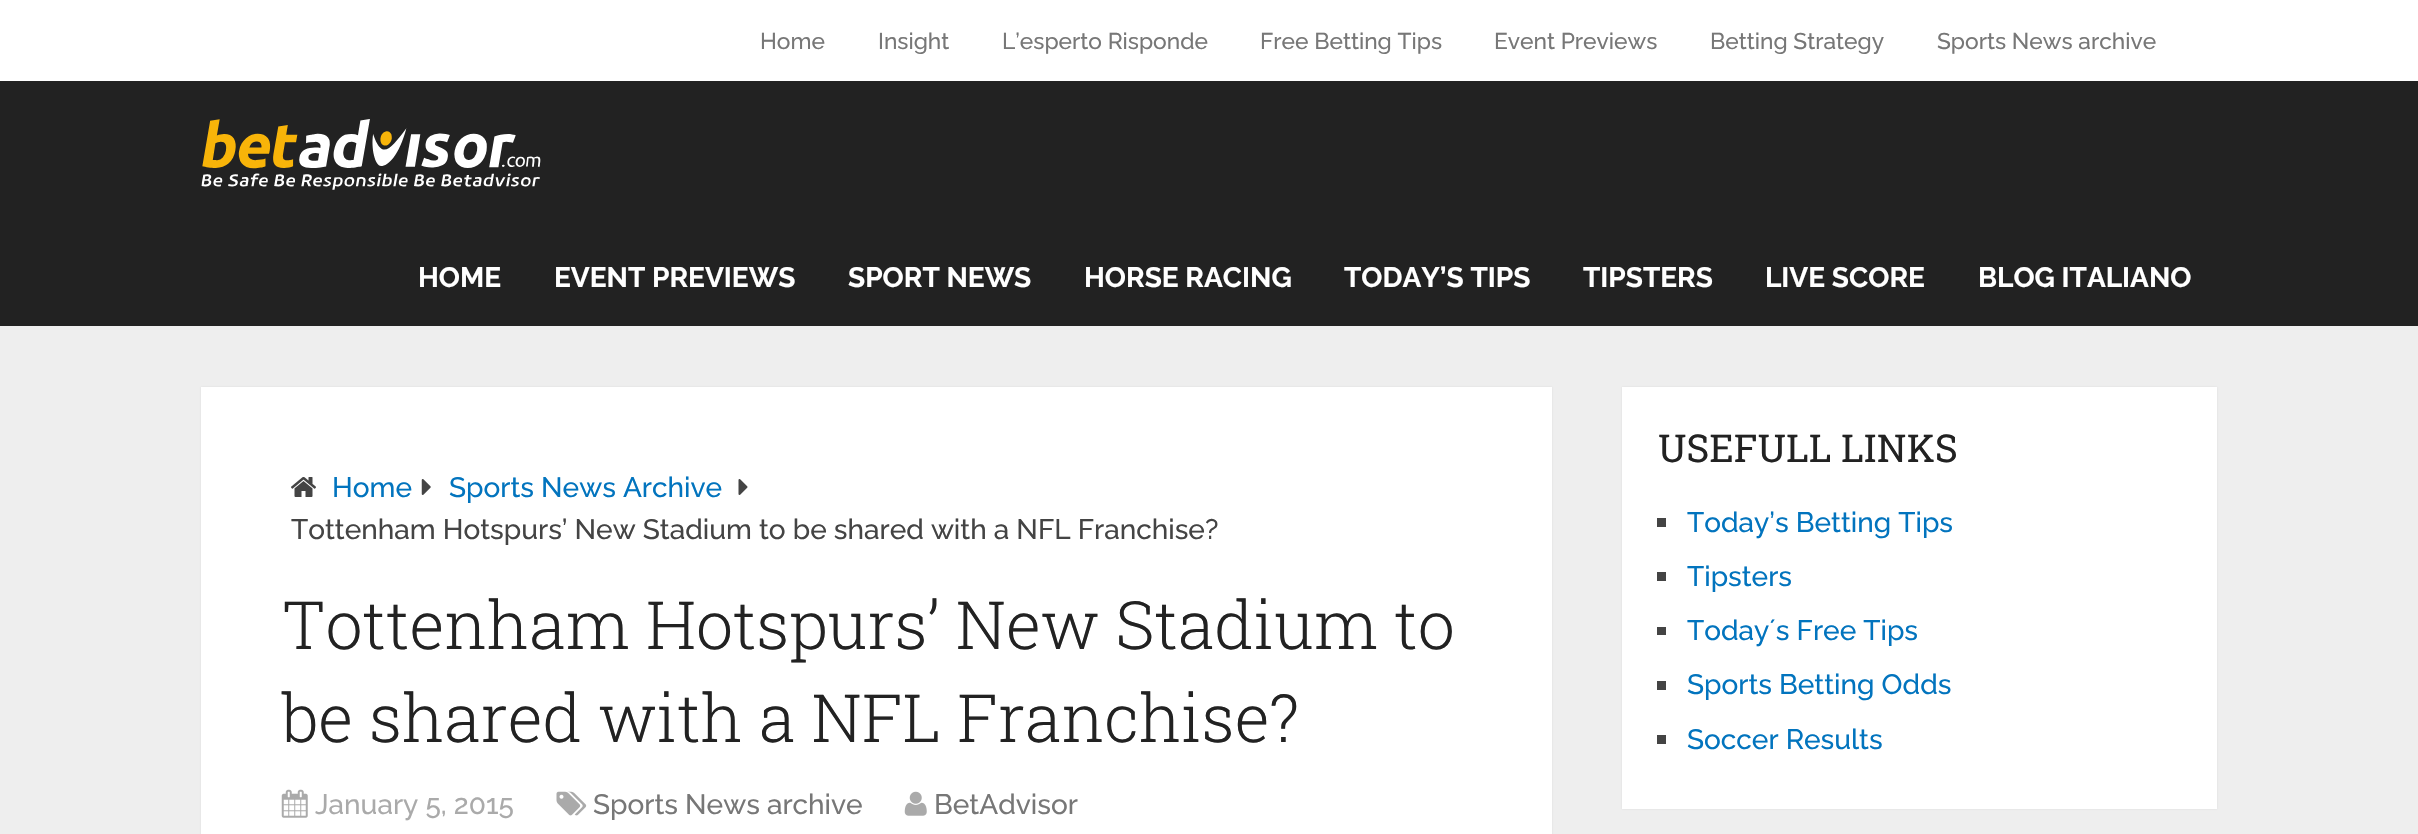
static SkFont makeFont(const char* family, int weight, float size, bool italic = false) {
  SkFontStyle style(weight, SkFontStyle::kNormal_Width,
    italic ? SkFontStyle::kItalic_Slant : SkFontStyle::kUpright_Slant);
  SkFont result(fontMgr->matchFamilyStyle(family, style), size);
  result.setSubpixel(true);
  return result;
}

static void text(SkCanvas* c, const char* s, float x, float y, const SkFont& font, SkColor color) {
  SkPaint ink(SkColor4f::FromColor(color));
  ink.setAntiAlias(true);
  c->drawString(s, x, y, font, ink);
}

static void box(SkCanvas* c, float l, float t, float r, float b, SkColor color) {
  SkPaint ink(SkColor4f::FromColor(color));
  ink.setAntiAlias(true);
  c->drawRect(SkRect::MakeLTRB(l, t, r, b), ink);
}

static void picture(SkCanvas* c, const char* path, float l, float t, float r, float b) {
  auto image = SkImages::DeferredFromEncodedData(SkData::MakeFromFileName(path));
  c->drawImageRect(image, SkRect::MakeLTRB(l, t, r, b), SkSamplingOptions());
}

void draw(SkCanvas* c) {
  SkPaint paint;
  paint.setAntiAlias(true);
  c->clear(0xffeeeeee);
  box(c, 0, 0, 2418, 81, 0xffffffff);
  SkFont face1 = makeFont("Raleway", 500, 22.75f);
  text(c, "Home", 760, 49, face1, 0xff777777);
  text(c, "Insight", 878, 49, face1, 0xff777777);
  text(c, "L’esperto Risponde", 1002, 49, face1, 0xff777777);
  text(c, "Free Betting Tips", 1260, 49, face1, 0xff777777);
  text(c, "Event Previews", 1494, 49, face1, 0xff777777);
  text(c, "Betting Strategy", 1710, 49, face1, 0xff777777);
  text(c, "Sports News archive", 1937, 49, face1, 0xff777777);
  box(c, 0, 81, 2418, 326, 0xff222222);
  picture(c, "img_01.png", 201, 119, 541, 190);
  SkFont face2 = makeFont("Raleway", 700, 28);
  text(c, "HOME", 418, 287, face2, 0xffffffff);
  text(c, "EVENT PREVIEWS", 554, 287, face2, 0xffffffff);
  text(c, "SPORT NEWS", 848, 287, face2, 0xffffffff);
  text(c, "HORSE RACING", 1084, 287, face2, 0xffffffff);
  text(c, "TODAY’S TIPS", 1344, 287, face2, 0xffffffff);
  text(c, "TIPSTERS", 1583, 287, face2, 0xffffffff);
  text(c, "LIVE SCORE", 1765, 287, face2, 0xffffffff);
  text(c, "BLOG ITALIANO", 1978, 287, face2, 0xffffffff);
  paint.setColor(0x1a323232);
  paint.setMaskFilter(SkMaskFilter::MakeBlur(kNormal_SkBlurStyle, 1));
  c->drawRect(SkRect::MakeLTRB(201, 387, 1552, 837), paint);
  paint.setMaskFilter(nullptr);
  box(c, 201, 387, 1552, 834, 0xffffffff);
  picture(c, "img_02.png", 291, 477, 316, 497);
  SkFont face3 = makeFont("Raleway", 500, 28);
  text(c, "Home", 332, 497, face3, 0xff0274be);
  picture(c, "img_03.png", 421, 479, 431, 495);
  text(c, "Sports News Archive", 449, 497, face3, 0xff0274be);
  picture(c, "img_04.png", 738, 479, 748, 495);
  text(c, "Tottenham Hotspurs’ New Stadium to be shared with a NFL Franchise?", 291, 539, face3, 0xff444444);
  SkFont face4 = makeFont("Roboto Slab", 300, 66.5f);
  text(c, "Tottenham Hotspurs’ New Stadium to", 282, 649, face4, 0xff222222);
  text(c, "be shared with a NFL Franchise?", 282, 742, face4, 0xff222222);
  picture(c, "img_05.png", 281, 789, 308, 818);
  text(c, "January 5, 2015", 315, 814, face3, 0xffaaaaaa);
  picture(c, "img_06.png", 556, 791, 587, 816);
  text(c, "Sports News archive", 593, 814, face3, 0xff777777);
  picture(c, "img_07.png", 904, 791, 927, 816);
  text(c, "BetAdvisor", 934, 814, face3, 0xff777777);
  paint.setMaskFilter(SkMaskFilter::MakeBlur(kNormal_SkBlurStyle, 1));
  c->drawRect(SkRect::MakeLTRB(1622, 387, 2217, 809), paint);
  paint.setMaskFilter(nullptr);
  box(c, 1622, 387, 2217, 809, 0xffffffff);
  SkFont face5 = makeFont("Roboto Slab", 400, 38.5f);
  text(c, "USEFULL LINKS", 1658, 462, face5, 0xff222222);
  box(c, 1657, 518, 1666, 527, 0xff444444);
  text(c, "Today’s Betting Tips", 1687, 532, face3, 0xff0274be);
  box(c, 1657, 572, 1666, 581, 0xff444444);
  text(c, "Tipsters", 1687, 586, face3, 0xff0274be);
  box(c, 1657, 627, 1666, 635, 0xff444444);
  text(c, "Todayʼs Free Tips", 1687, 640, face3, 0xff0274be);
  box(c, 1657, 681, 1666, 690, 0xff444444);
  text(c, "Sports Betting Odds", 1687, 694, face3, 0xff0274be);
  box(c, 1657, 735, 1666, 744, 0xff444444);
  text(c, "Soccer Results", 1687, 749, face3, 0xff0274be);
}
